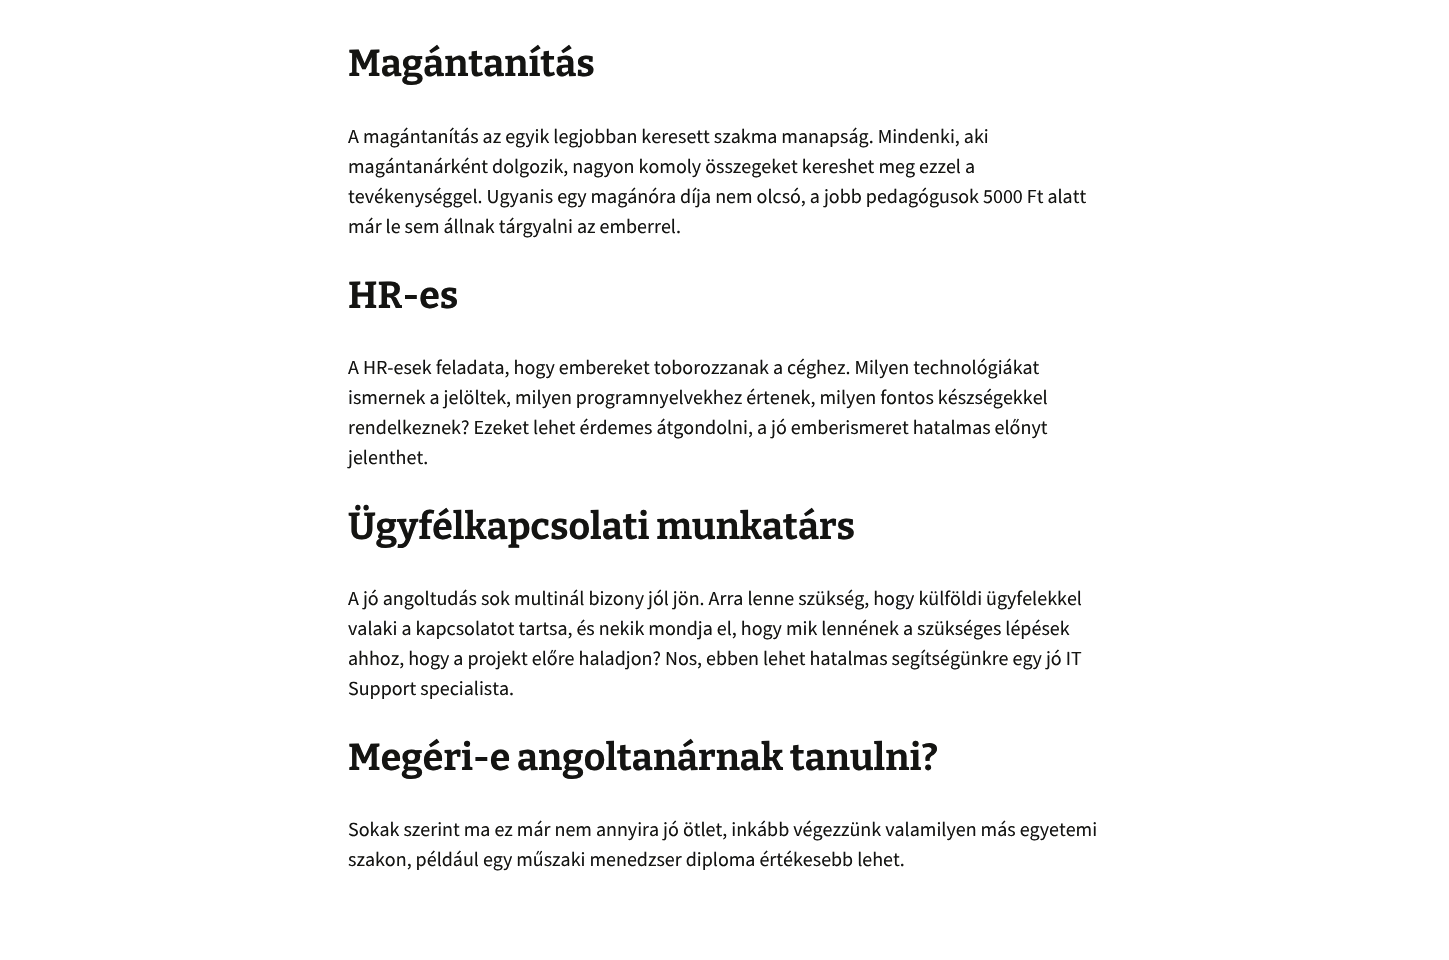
static SkFont makeFont(const char* family, int weight, float size, bool italic = false) {
  SkFontStyle style(weight, SkFontStyle::kNormal_Width,
    italic ? SkFontStyle::kItalic_Slant : SkFontStyle::kUpright_Slant);
  SkFont result(fontMgr->matchFamilyStyle(family, style), size);
  result.setSubpixel(true);
  return result;
}

static void text(SkCanvas* c, const char* s, float x, float y, const SkFont& font, SkColor color) {
  SkPaint ink(SkColor4f::FromColor(color));
  ink.setAntiAlias(true);
  c->drawString(s, x, y, font, ink);
}

void draw(SkCanvas* c) {
  SkPaint paint;
  paint.setAntiAlias(true);
  c->clear(0xffffffff);
  SkFont face1 = makeFont("Bitter", 700, 37.5f);
  text(c, "Magántanítás", 348, 76, face1, 0xff141412);
  SkFont face2 = makeFont("Source Sans Pro", 400, 20);
  text(c, "A magántanítás az egyik legjobban keresett szakma manapság. Mindenki, aki", 348, 143, face2, 0xff141412);
  text(c, "magántanárként dolgozik, nagyon komoly összegeket kereshet meg ezzel a", 348, 173, face2, 0xff141412);
  text(c, "tevékenységgel. Ugyanis egy magánóra díja nem olcsó, a jobb pedagógusok 5000 Ft alatt", 348, 203, face2, 0xff141412);
  text(c, "már le sem állnak tárgyalni az emberrel.", 348, 233, face2, 0xff141412);
  text(c, "HR-es", 348, 308, face1, 0xff141412);
  text(c, "A HR-esek feladata, hogy embereket toborozzanak a céghez. Milyen technológiákat", 348, 374, face2, 0xff141412);
  text(c, "ismernek a jelöltek, milyen programnyelvekhez értenek, milyen fontos készségekkel", 348, 404, face2, 0xff141412);
  text(c, "rendelkeznek? Ezeket lehet érdemes átgondolni, a jó emberismeret hatalmas előnyt", 348, 434, face2, 0xff141412);
  text(c, "jelenthet.", 348, 464, face2, 0xff141412);
  text(c, "Ügyfélkapcsolati munkatárs", 348, 539, face1, 0xff141412);
  text(c, "A jó angoltudás sok multinál bizony jól jön. Arra lenne szükség, hogy külföldi ügyfelekkel", 348, 605, face2, 0xff141412);
  text(c, "valaki a kapcsolatot tartsa, és nekik mondja el, hogy mik lennének a szükséges lépések", 348, 635, face2, 0xff141412);
  text(c, "ahhoz, hogy a projekt előre haladjon? Nos, ebben lehet hatalmas segítségünkre egy jó IT", 348, 665, face2, 0xff141412);
  text(c, "Support specialista.", 348, 695, face2, 0xff141412);
  text(c, "Megéri-e angoltanárnak tanulni?", 348, 770, face1, 0xff141412);
  text(c, "Sokak szerint ma ez már nem annyira jó ötlet, inkább végezzünk valamilyen más egyetemi", 348, 836, face2, 0xff141412);
  text(c, "szakon, például egy műszaki menedzser diploma értékesebb lehet.", 348, 866, face2, 0xff141412);
}
